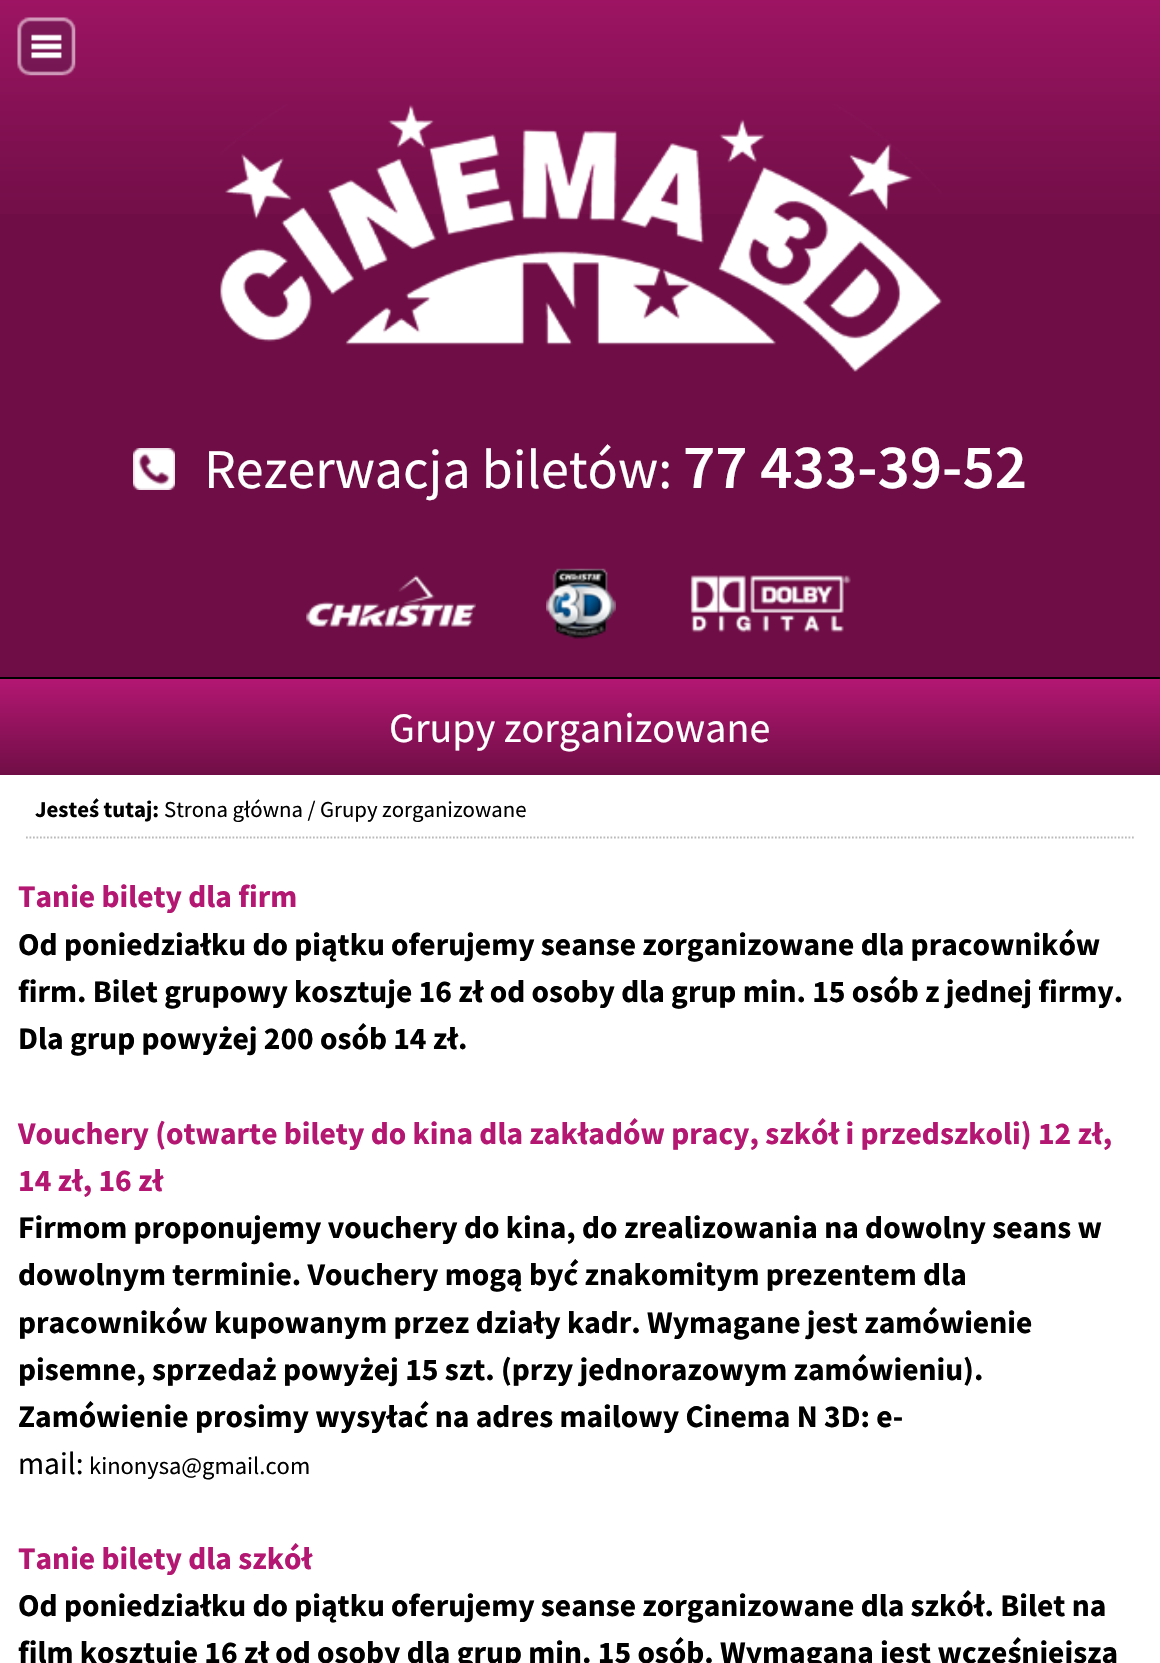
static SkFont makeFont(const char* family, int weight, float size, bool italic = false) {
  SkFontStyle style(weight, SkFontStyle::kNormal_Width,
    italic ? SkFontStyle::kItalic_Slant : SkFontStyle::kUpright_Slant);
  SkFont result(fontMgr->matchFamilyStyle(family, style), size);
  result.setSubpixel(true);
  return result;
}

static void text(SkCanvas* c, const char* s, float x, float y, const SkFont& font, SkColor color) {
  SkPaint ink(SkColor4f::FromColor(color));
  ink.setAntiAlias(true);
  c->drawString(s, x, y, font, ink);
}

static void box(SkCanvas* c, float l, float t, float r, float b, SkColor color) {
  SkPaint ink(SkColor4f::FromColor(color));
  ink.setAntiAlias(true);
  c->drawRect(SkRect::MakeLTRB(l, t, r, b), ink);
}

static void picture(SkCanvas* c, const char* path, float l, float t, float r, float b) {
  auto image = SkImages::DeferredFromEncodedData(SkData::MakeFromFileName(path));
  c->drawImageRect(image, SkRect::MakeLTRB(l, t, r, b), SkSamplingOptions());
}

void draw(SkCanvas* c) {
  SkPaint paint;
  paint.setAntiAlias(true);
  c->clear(0xff6f0e46);
  picture(c, "img_02.png", 0, 0, 1160, 214);
  picture(c, "img_01.png", 17, 17, 76, 76);
  box(c, 0, 677, 1160, 679, 0xff000000);
  picture(c, "img_03.png", 220, 104, 942, 372);
  picture(c, "img_04.png", 133, 448, 175, 490);
  SkFont face1 = makeFont("Source Sans Pro", 400, 56);
  text(c, "Rezerwacja biletów:", 204, 488, face1, 0xffffffff);
  SkFont face2 = makeFont("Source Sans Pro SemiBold", 600, 63);
  text(c, "77 433-39-52", 683, 488, face2, 0xffffffff);
  picture(c, "img_05.png", 306, 575, 476, 627);
  picture(c, "img_06.png", 546, 568, 616, 639);
  picture(c, "img_07.png", 690, 575, 851, 633);
  {
    const SkColor colors[] = {0xffb31772, 0xff700e46};
    const float stops[] = {0, 1};
    const SkPoint ends[] = {{580, 679}, {580, 775}};
    paint.setShader(SkGradientShader::MakeLinear(ends, colors, stops, 2, SkTileMode::kClamp));
    paint.setAlpha(255);
  }
  c->drawRect(SkRect::MakeLTRB(0, 679, 1160, 773), paint);
  SkFont face3 = makeFont("Source Sans Pro", 400, 42);
  text(c, "Grupy zorganizowane", 389, 742, face3, 0xffffffff);
  box(c, 0, 775, 1160, 1663, 0xffffffff);
  paint.setStyle(SkPaint::kStroke_Style);
  paint.setStrokeWidth(1.8f);
  paint.setShader(nullptr);
  paint.setColor(0xffbababa);
  paint.setPathEffect(SkDashPathEffect::Make({{1.75f, 1.75f}}, 0));
  c->drawPath(SkPathBuilder().moveTo(26, 837.5f).lineTo(1134, 837.5f).detach(), paint);
  paint.setPathEffect(nullptr);
  SkFont face4 = makeFont("Source Sans Pro", 700, 22.75f);
  text(c, "Jesteś tutaj:", 35, 817, face4, 0xff000000);
  SkFont face5 = makeFont("Source Sans Pro", 400, 22.75f);
  text(c, "Strona główna / Grupy zorganizowane", 164, 817, face5, 0xff000000);
  SkFont face6 = makeFont("Source Sans Pro", 700, 31.5f);
  text(c, "Tanie bilety dla firm", 18, 907, face6, 0xffb31771);
  text(c, "Od poniedziałku do piątku oferujemy seanse zorganizowane dla pracowników", 18, 955, face6, 0xff000000);
  text(c, "firm. Bilet grupowy kosztuje 16 zł od osoby dla grup min. 15 osób z jednej firmy.", 18, 1002, face6, 0xff000000);
  text(c, "Dla grup powyżej 200 osób 14 zł.", 18, 1049, face6, 0xff000000);
  text(c, "Vouchery (otwarte bilety do kina dla zakładów pracy, szkół i przedszkoli) 12 zł,", 18, 1144, face6, 0xffb31771);
  text(c, "14 zł, 16 zł", 18, 1191, face6, 0xffb31771);
  text(c, "Firmom proponujemy vouchery do kina, do zrealizowania na dowolny seans w", 18, 1238, face6, 0xff000000);
  text(c, "dowolnym terminie. Vouchery mogą być znakomitym prezentem dla", 18, 1285, face6, 0xff000000);
  text(c, "pracowników kupowanym przez działy kadr. Wymagane jest zamówienie", 18, 1333, face6, 0xff000000);
  text(c, "pisemne, sprzedaż powyżej 15 szt. (przy jednorazowym zamówieniu).", 18, 1380, face6, 0xff000000);
  text(c, "Zamówienie prosimy wysyłać na adres mailowy Cinema N 3D: e-", 18, 1427, face6, 0xff000000);
  SkFont face7 = makeFont("Source Sans Pro", 400, 31.5f);
  text(c, "mail:", 18, 1474, face7, 0xff000000);
  SkFont face8 = makeFont("Source Sans Pro", 400, 24.5f);
  text(c, "kinonysa@gmail.com", 89, 1474, face8, 0xff000000);
  text(c, "Tanie bilety dla szkół", 18, 1569, face6, 0xffb31771);
  text(c, "Od poniedziałku do piątku oferujemy seanse zorganizowane dla szkół. Bilet na", 18, 1616, face6, 0xff000000);
  text(c, "film kosztuje 16 zł od osoby dla grup min. 15 osób. Wymagana jest wcześniejsza", 18, 1663, face6, 0xff000000);
}
